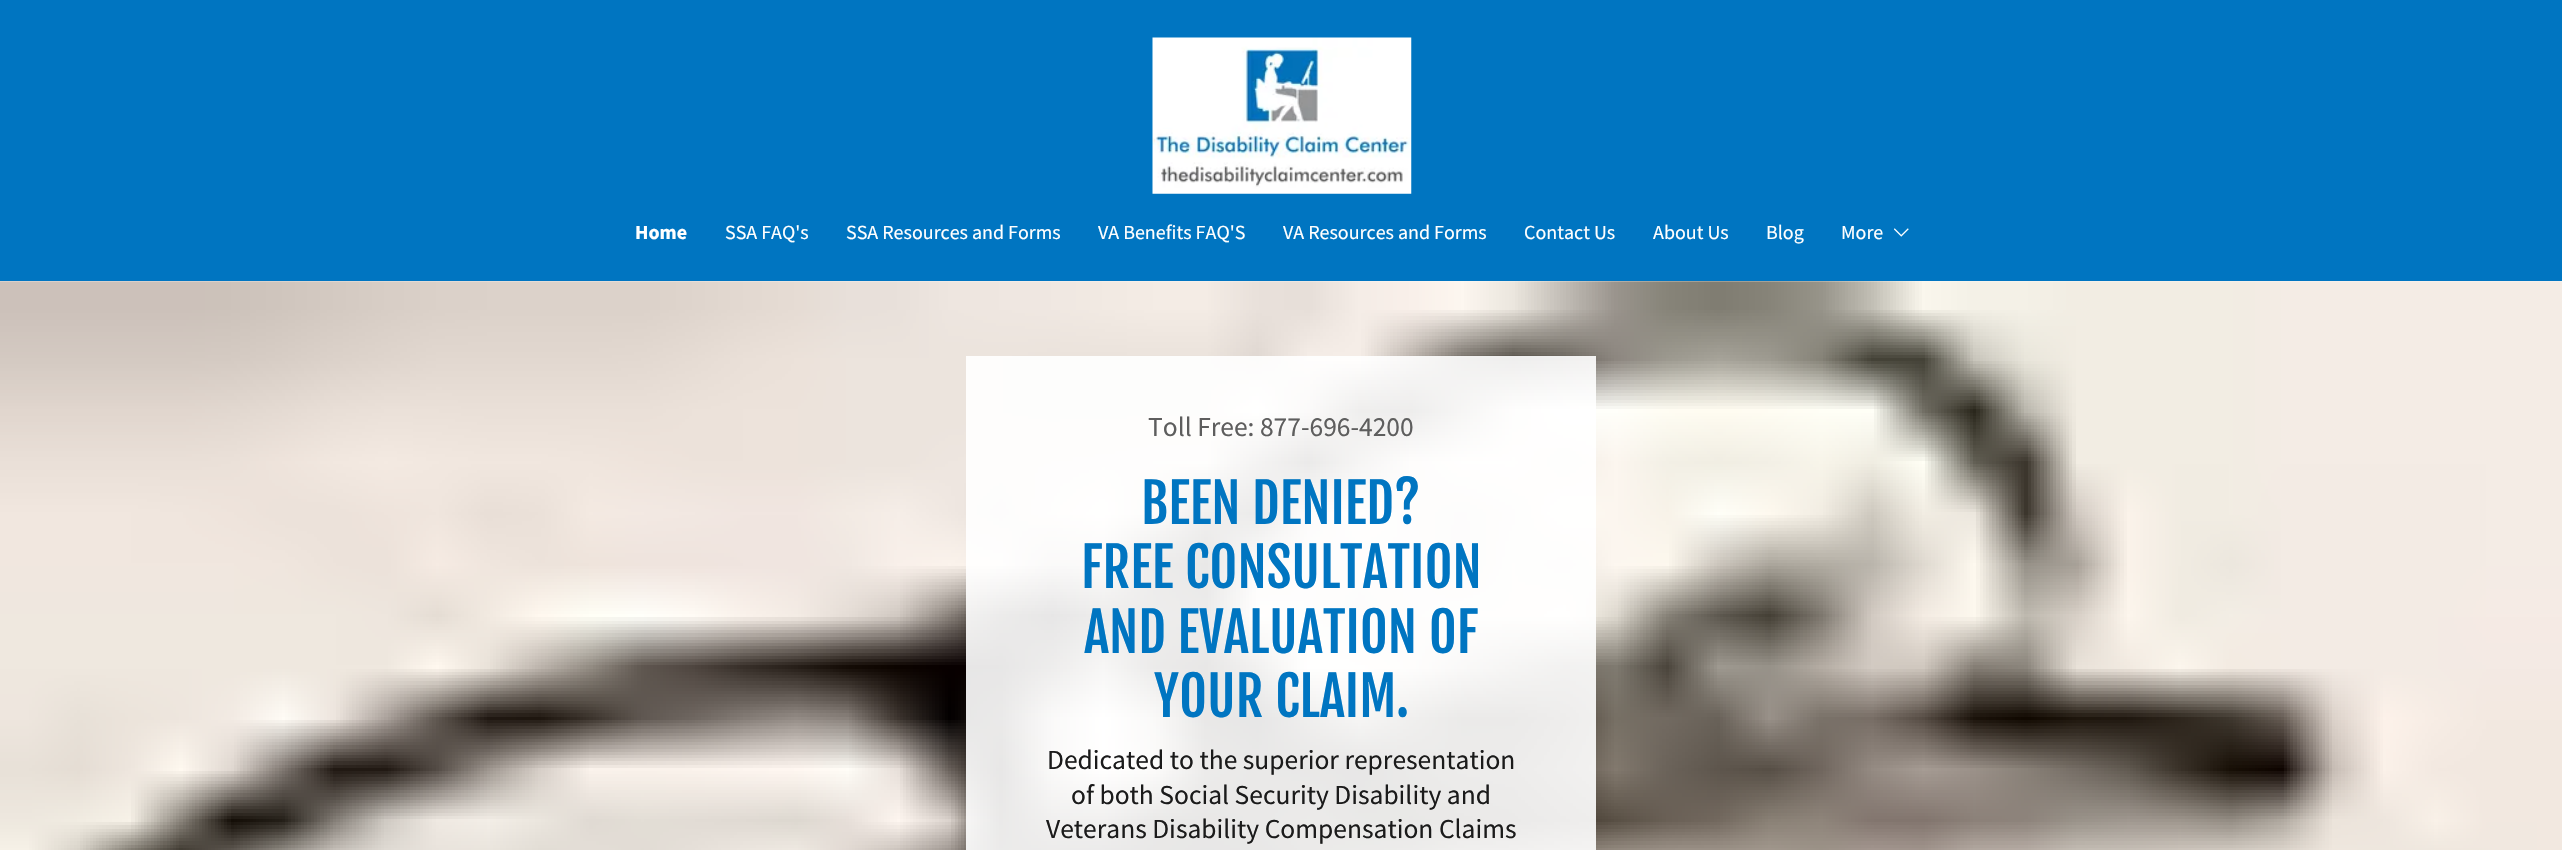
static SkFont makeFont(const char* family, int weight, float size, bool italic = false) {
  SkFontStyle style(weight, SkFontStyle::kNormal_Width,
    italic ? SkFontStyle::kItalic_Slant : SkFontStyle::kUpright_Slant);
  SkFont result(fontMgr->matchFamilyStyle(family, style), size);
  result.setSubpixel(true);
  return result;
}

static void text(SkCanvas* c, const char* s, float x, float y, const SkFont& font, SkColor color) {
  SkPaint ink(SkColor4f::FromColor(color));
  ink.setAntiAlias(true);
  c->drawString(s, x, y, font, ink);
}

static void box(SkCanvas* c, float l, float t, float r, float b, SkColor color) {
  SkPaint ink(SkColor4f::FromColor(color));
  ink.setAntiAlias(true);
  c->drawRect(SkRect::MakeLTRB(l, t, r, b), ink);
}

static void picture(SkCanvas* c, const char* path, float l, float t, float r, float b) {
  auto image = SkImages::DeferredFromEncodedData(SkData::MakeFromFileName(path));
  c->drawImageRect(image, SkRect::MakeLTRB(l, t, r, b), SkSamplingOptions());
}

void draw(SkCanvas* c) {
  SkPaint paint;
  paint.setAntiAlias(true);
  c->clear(0xffffffff);
  box(c, 0, 0, 2562, 281, 0xff0075c1);
  picture(c, "img_01.png", 1152, 37, 1412, 194);
  SkFont face1 = makeFont("Source Sans Pro", 700, 20);
  text(c, "Home", 635, 239, face1, 0xffffffff);
  SkFont face2 = makeFont("Source Sans Pro", 400, 20);
  text(c, "SSA FAQ's", 725, 239, face2, 0xffffffff);
  text(c, "SSA Resources and Forms", 846, 239, face2, 0xffffffff);
  text(c, "VA Benefits FAQ'S", 1098, 239, face2, 0xffffffff);
  text(c, "VA Resources and Forms", 1283, 239, face2, 0xffffffff);
  text(c, "Contact Us", 1524, 239, face2, 0xffffffff);
  text(c, "About Us", 1653, 239, face2, 0xffffffff);
  text(c, "Blog", 1766, 239, face2, 0xffffffff);
  text(c, "More", 1841, 239, face2, 0xffffffff);
  picture(c, "img_02.png", 1894, 228, 1909, 237);
  picture(c, "img_03.png", 0, 281, 2562, 850);
  box(c, 966, 356, 1596, 850, 0xe6ffffff);
  SkFont face3 = makeFont("Source Sans Pro", 400, 27.5f);
  text(c, "Toll Free: 877-696-4200", 1148, 436, face3, 0xff5e5e5e);
  SkFont face4 = makeFont("Fjalla One", 400, 53.75f);
  text(c, "BEEN DENIED?", 1141, 524, face4, 0xff0075c1);
  text(c, "FREE CONSULTATION", 1081, 588, face4, 0xff0075c1);
  text(c, "AND EVALUATION OF", 1084, 653, face4, 0xff0075c1);
  text(c, "YOUR CLAIM.", 1154, 717, face4, 0xff0075c1);
  text(c, "Dedicated to the superior representation", 1047, 769, face3, 0xff1b1b1b);
  text(c, "of both Social Security Disability and", 1071, 804, face3, 0xff1b1b1b);
  text(c, "Veterans Disability Compensation Claims", 1046, 838, face3, 0xff1b1b1b);
}
